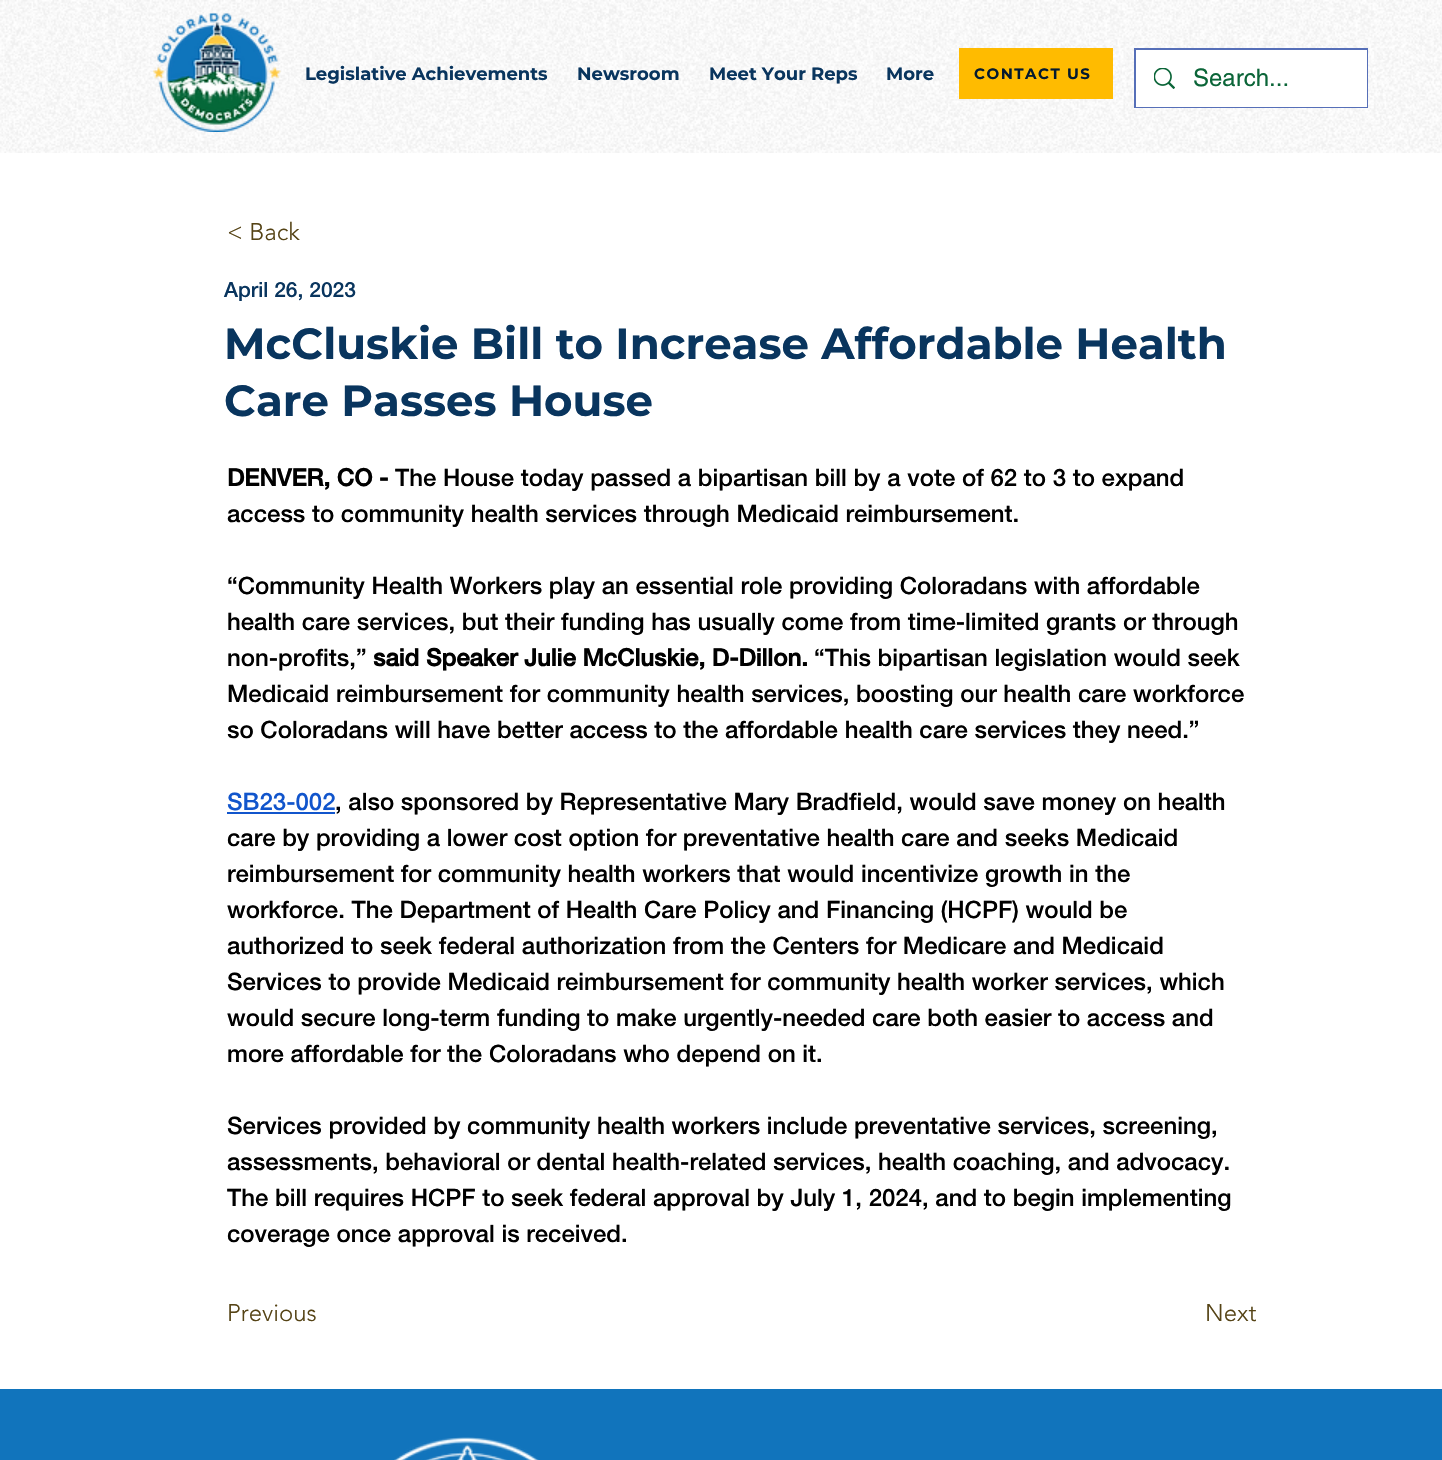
static SkFont makeFont(const char* family, int weight, float size, bool italic = false) {
  SkFontStyle style(weight, SkFontStyle::kNormal_Width,
    italic ? SkFontStyle::kItalic_Slant : SkFontStyle::kUpright_Slant);
  SkFont result(fontMgr->matchFamilyStyle(family, style), size);
  result.setSubpixel(true);
  return result;
}

static void text(SkCanvas* c, const char* s, float x, float y, const SkFont& font, SkColor color) {
  SkPaint ink(SkColor4f::FromColor(color));
  ink.setAntiAlias(true);
  c->drawString(s, x, y, font, ink);
}

static void spacedText(SkCanvas* c, const char* s, float x, float y, const SkFont& font, const SkPaint& ink, float letter, float word) {
  std::vector<SkGlyphID> glyphs(font.countText(s, strlen(s), SkTextEncoding::kUTF8));
  std::vector<float> xs(glyphs.size());
  font.textToGlyphs(s, strlen(s), SkTextEncoding::kUTF8, glyphs);
  font.getXPos(glyphs, xs, x);
  float extra = 0;
  for (size_t i = 0; i < glyphs.size(); i++) {
    xs[i] += extra;
    extra += letter + word * (glyphs[i] == font.unicharToGlyph(' '));
  }
  c->drawTextBlob(SkTextBlob::MakeFromPosHGlyphs(glyphs, xs, y, font), 0, 0, ink);
}

static void box(SkCanvas* c, float l, float t, float r, float b, SkColor color) {
  SkPaint ink(SkColor4f::FromColor(color));
  ink.setAntiAlias(true);
  c->drawRect(SkRect::MakeLTRB(l, t, r, b), ink);
}

static void picture(SkCanvas* c, const char* path, float l, float t, float r, float b) {
  auto image = SkImages::DeferredFromEncodedData(SkData::MakeFromFileName(path));
  c->drawImageRect(image, SkRect::MakeLTRB(l, t, r, b), SkSamplingOptions());
}

void draw(SkCanvas* c) {
  SkPaint paint;
  paint.setAntiAlias(true);
  c->clear(0xffffffff);
  picture(c, "img_01.png", 0, 0, 1442, 153);
  picture(c, "img_02.png", 153, 13, 281, 132);
  SkFont face1 = makeFont("Montserrat", 700, 18);
  text(c, "Legislative Achievements", 305, 80, face1, 0xff09355e);
  text(c, "Newsroom", 577, 80, face1, 0xff09355e);
  text(c, "Meet Your Reps", 709, 80, face1, 0xff09355e);
  text(c, "More", 886, 80, face1, 0xff09355e);
  box(c, 959, 48, 1113, 99, 0xffffbb00);
  SkFont face2 = makeFont("Montserrat", 700, 15);
  paint.setColor(0xff041a2f);
  spacedText(c, "CONTACT US", 974, 79, face2, paint, 1.5f, 0);
  paint.setStyle(SkPaint::kStroke_Style);
  paint.setStrokeWidth(2);
  paint.setColor(0xff566fb8);
  c->drawRect(SkRect::MakeLTRB(1135, 49, 1367, 107), paint);
  box(c, 1136, 50, 1367, 107, 0xffffffff);
  picture(c, "img_03.png", 1154, 68, 1175, 89);
  SkFont face3 = makeFont("helvetica", 400, 24);
  text(c, "Search...", 1193, 86, face3, 0xff0b6538);
  SkFont face4 = makeFont("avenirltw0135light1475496", 300, 24);
  text(c, "< Back", 227, 240, face4, 0xff554315);
  SkFont face5 = makeFont("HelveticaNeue", 500, 21);
  text(c, "April 26, 2023", 224, 297, face5, 0xff09355e);
  SkFont face6 = makeFont("Montserrat", 700, 43.5f);
  text(c, "McCluskie Bill to Increase Affordable Health", 224, 359, face6, 0xff09355e);
  text(c, "Care Passes House", 224, 416, face6, 0xff09355e);
  SkFont face7 = makeFont("HelveticaNeue", 700, 24);
  text(c, "DENVER, CO -", 227, 486, face7, 0xff000000);
  SkFont face8 = makeFont("HelveticaNeue", 500, 24);
  text(c, "The House today passed a bipartisan bill by a vote of 62 to 3 to expand", 395, 486, face8, 0xff000000);
  text(c, "access to community health services through Medicaid reimbursement.", 227, 522, face8, 0xff000000);
  text(c, "“Community Health Workers play an essential role providing Coloradans with affordable", 227, 594, face8, 0xff000000);
  text(c, "health care services, but their funding has usually come from time-limited grants or through", 227, 630, face8, 0xff000000);
  text(c, "non-profits,”", 227, 666, face8, 0xff000000);
  text(c, "said Speaker Julie McCluskie, D-Dillon.", 373, 666, face7, 0xff000000);
  text(c, "“This bipartisan legislation would seek", 814, 666, face8, 0xff000000);
  text(c, "Medicaid reimbursement for community health services, boosting our health care workforce", 227, 702, face8, 0xff000000);
  text(c, "so Coloradans will have better access to the affordable health care services they need.”", 227, 738, face8, 0xff000000);
  text(c, "SB23-002", 227, 810, face8, 0xff1155cc);
  box(c, 227, 812, 335, 814, 0xff1155cc);
  text(c, ", also sponsored by Representative Mary Bradfield, would save money on health", 335, 810, face8, 0xff000000);
  text(c, "care by providing a lower cost option for preventative health care and seeks Medicaid", 227, 846, face8, 0xff000000);
  text(c, "reimbursement for community health workers that would incentivize growth in the", 227, 882, face8, 0xff000000);
  text(c, "workforce. The Department of Health Care Policy and Financing (HCPF) would be", 227, 918, face8, 0xff000000);
  text(c, "authorized to seek federal authorization from the Centers for Medicare and Medicaid", 227, 954, face8, 0xff000000);
  text(c, "Services to provide Medicaid reimbursement for community health worker services, which", 227, 990, face8, 0xff000000);
  text(c, "would secure long-term funding to make urgently-needed care both easier to access and", 227, 1026, face8, 0xff000000);
  text(c, "more affordable for the Coloradans who depend on it.", 227, 1062, face8, 0xff000000);
  text(c, "Services provided by community health workers include preventative services, screening,", 227, 1134, face8, 0xff000000);
  text(c, "assessments, behavioral or dental health-related services, health coaching, and advocacy.", 227, 1170, face8, 0xff000000);
  c->save();
  c->clipRect(SkRect::MakeLTRB(227, 461, 1247, 1253));
  text(c, "The bill requires HCPF to seek federal approval by July 1, 2024, and to begin implementing", 227, 1206, face8, 0xff000000);
  c->restore();
  text(c, "coverage once approval is received.", 227, 1242, face8, 0xff000000);
  text(c, "Previous", 227, 1321, face4, 0xff554315);
  text(c, "Next", 1205, 1321, face4, 0xff554315);
  box(c, 0, 1389, 1442, 1460, 0xff1174bc);
  picture(c, "img_04.png", 394, 1437, 539, 1460);
}
